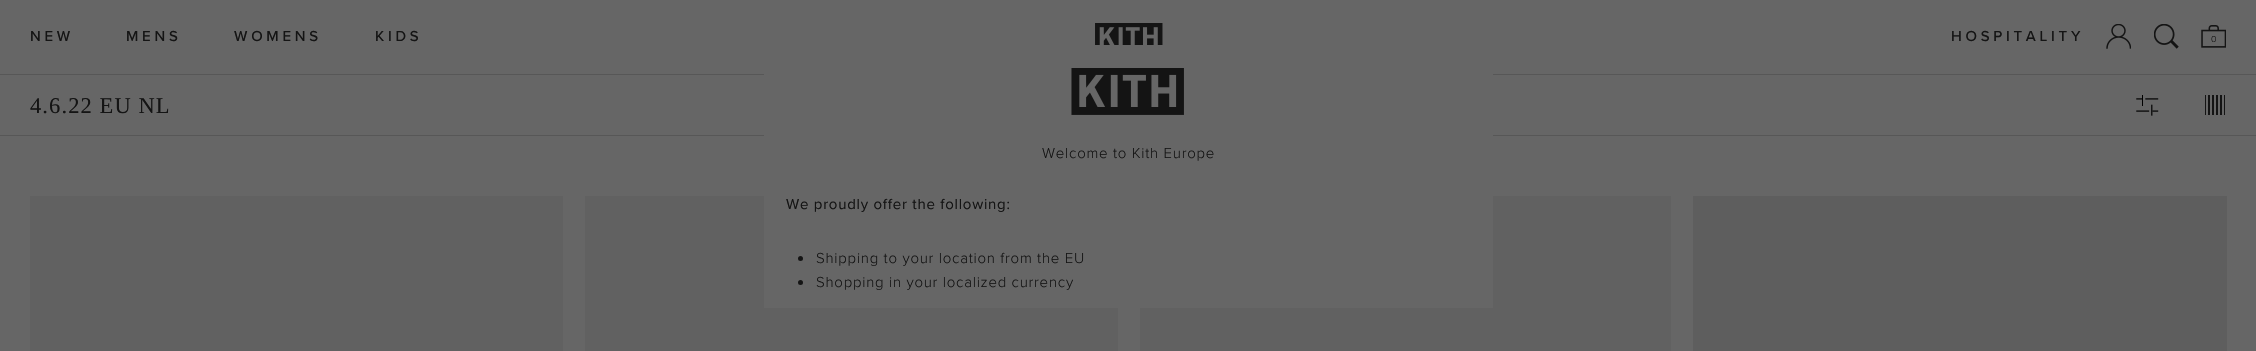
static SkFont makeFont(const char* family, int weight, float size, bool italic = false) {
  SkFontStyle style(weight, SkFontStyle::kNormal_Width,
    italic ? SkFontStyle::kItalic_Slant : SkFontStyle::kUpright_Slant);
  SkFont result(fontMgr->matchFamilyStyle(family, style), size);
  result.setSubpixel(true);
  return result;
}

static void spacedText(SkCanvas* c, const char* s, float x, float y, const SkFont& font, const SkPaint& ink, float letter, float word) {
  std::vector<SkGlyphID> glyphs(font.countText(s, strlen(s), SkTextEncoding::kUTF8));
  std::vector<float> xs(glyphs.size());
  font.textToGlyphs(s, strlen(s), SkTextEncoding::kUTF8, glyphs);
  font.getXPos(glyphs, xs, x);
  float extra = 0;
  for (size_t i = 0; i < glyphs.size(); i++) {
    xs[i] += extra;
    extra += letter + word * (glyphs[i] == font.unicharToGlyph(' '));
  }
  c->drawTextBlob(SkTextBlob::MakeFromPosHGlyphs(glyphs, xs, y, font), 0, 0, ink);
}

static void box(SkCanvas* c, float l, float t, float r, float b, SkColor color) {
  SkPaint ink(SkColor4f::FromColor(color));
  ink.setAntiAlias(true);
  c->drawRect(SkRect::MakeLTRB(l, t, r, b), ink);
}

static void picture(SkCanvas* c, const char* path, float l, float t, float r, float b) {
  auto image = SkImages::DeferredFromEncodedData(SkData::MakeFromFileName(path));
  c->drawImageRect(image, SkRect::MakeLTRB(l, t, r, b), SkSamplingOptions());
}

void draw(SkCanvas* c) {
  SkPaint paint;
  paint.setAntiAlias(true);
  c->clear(0xff666666);
  SkFont face1 = makeFont("Proxima Nova", 500, 15);
  paint.setColor(0xff141414);
  spacedText(c, "NEW", 30, 41, face1, paint, 3.75f, 0);
  spacedText(c, "MENS", 126, 41, face1, paint, 3.75f, 0);
  spacedText(c, "WOMENS", 234, 41, face1, paint, 3.75f, 0);
  spacedText(c, "KIDS", 375, 41, face1, paint, 3.75f, 0);
  picture(c, "img_01.png", 1095, 23, 1163, 45);
  spacedText(c, "HOSPITALITY", 1951, 41, face1, paint, 3.75f, 0);
  picture(c, "img_02.png", 2106, 24, 2131, 49);
  picture(c, "img_03.png", 2154, 24, 2179, 49);
  picture(c, "img_04.png", 2201, 25, 2226, 48);
  SkFont face2 = makeFont("Proxima Nova", 300, 9);
  spacedText(c, "0", 2211, 42, face2, paint, 0.75f, 0);
  box(c, 0, 74, 2256, 75, 0xff575757);
  box(c, 0, 135, 2256, 136, 0xff575757);
  SkFont face3 = makeFont("Liberation Serif", 400, 22.5f);
  spacedText(c, "4.6.22 EU NL", 30, 113, face3, paint, 1.1f, 0);
  picture(c, "img_05.png", 2136, 95, 2159, 116);
  picture(c, "img_06.png", 2205, 95, 2225, 115);
  box(c, 30, 196, 563, 351, 0xff616161);
  box(c, 585, 196, 1118, 351, 0xff616161);
  box(c, 1140, 196, 1671, 351, 0xff616161);
  box(c, 1693, 196, 2227, 351, 0xff5e5e5e);
  box(c, 764, 74, 1493, 308, 0xff666666);
  picture(c, "img_07.png", 1071, 68, 1184, 115);
  SkFont face4 = makeFont("Proxima Nova", 300, 15);
  spacedText(c, "Welcome to Kith Europe", 1042, 158, face4, paint, 0.75f, 0);
  SkFont face5 = makeFont("Proxima Nova", 400, 15);
  spacedText(c, "We proudly offer the following:", 786, 209, face5, paint, 0.75f, 0);
  c->drawCircle(800.5f, 258.5f, 2.5f, paint);
  spacedText(c, "Shipping to your location from the EU", 816, 263, face4, paint, 0.75f, 0);
  c->drawCircle(800.5f, 282.5f, 2.5f, paint);
  spacedText(c, "Shopping in your localized currency", 816, 287, face4, paint, 0.75f, 0);
}
